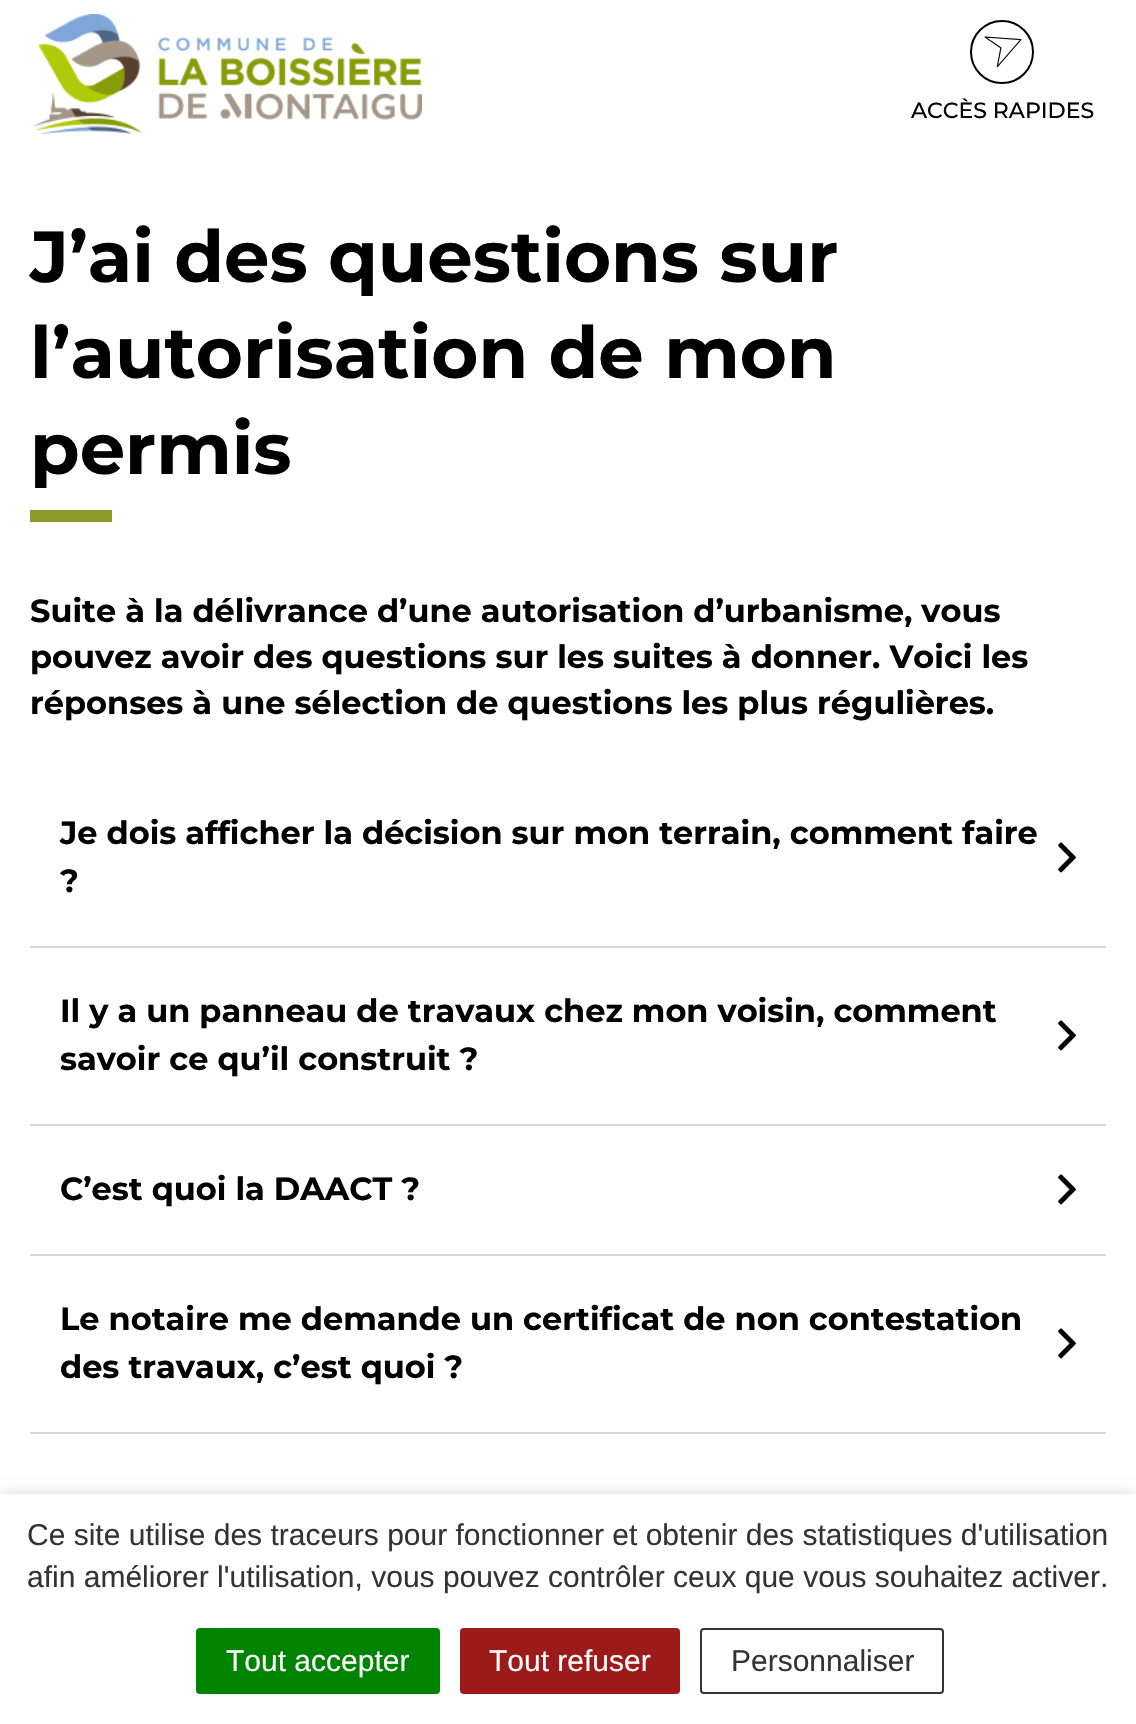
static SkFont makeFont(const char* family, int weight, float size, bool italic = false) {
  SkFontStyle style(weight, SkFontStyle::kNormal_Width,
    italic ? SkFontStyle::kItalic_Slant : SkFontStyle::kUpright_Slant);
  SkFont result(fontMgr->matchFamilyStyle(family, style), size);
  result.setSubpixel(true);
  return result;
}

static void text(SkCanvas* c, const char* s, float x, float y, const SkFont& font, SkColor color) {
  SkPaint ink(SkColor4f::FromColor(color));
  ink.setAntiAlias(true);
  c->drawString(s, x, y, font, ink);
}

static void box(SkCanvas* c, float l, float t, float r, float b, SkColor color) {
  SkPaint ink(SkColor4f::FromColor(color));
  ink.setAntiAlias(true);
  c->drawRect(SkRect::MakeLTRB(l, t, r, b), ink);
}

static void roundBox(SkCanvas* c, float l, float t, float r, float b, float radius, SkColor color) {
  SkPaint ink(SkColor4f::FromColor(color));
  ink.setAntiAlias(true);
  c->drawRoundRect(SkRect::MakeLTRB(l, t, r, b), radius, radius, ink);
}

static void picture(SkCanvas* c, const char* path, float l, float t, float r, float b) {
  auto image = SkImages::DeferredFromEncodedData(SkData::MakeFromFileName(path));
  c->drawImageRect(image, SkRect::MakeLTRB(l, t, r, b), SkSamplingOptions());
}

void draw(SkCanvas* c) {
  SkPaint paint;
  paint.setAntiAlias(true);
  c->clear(0xffffffff);
  picture(c, "img_01.png", 34, 14, 422, 134);
  paint.setStyle(SkPaint::kStroke_Style);
  paint.setStrokeWidth(2);
  paint.setColor(0xff000000);
  c->drawCircle(1002, 52, 31, paint);
  picture(c, "img_02.png", 984, 36, 1022, 68);
  SkFont face1 = makeFont("Montserrat", 500, 22);
  text(c, "ACCÈS RAPIDES", 911, 118, face1, 0xff000000);
  SkFont face2 = makeFont("Montserrat", 700, 72);
  text(c, "J’ai des questions sur", 30, 282, face2, 0xff000000);
  text(c, "l’autorisation de mon", 30, 378, face2, 0xff000000);
  text(c, "permis", 30, 474, face2, 0xff000000);
  box(c, 30, 510, 112, 522, 0xff8d9c29);
  SkFont face3 = makeFont("Montserrat", 700, 32);
  text(c, "Suite à la délivrance d’une autorisation d’urbanisme, vous", 30, 622, face3, 0xff000000);
  text(c, "pouvez avoir des questions sur les suites à donner. Voici les", 30, 668, face3, 0xff000000);
  text(c, "réponses à une sélection de questions les plus régulières.", 30, 714, face3, 0xff000000);
  box(c, 30, 946, 1106, 948, 0xffd8d8d8);
  text(c, "Je dois afficher la décision sur mon terrain, comment faire", 60, 844, face3, 0xff000000);
  picture(c, "img_03.png", 1058, 842, 1076, 873);
  text(c, "?", 60, 892, face3, 0xff000000);
  box(c, 30, 1124, 1106, 1126, 0xffd8d8d8);
  text(c, "Il y a un panneau de travaux chez mon voisin, comment", 60, 1022, face3, 0xff000000);
  picture(c, "img_03.png", 1058, 1020, 1076, 1051);
  text(c, "savoir ce qu’il construit ?", 60, 1070, face3, 0xff000000);
  box(c, 30, 1254, 1106, 1256, 0xffd8d8d8);
  text(c, "C’est quoi la DAACT ?", 60, 1200, face3, 0xff000000);
  picture(c, "img_03.png", 1058, 1174, 1076, 1205);
  box(c, 30, 1432, 1106, 1434, 0xffd8d8d8);
  text(c, "Le notaire me demande un certificat de non contestation", 60, 1330, face3, 0xff000000);
  picture(c, "img_03.png", 1058, 1328, 1076, 1359);
  text(c, "des travaux, c’est quoi ?", 60, 1378, face3, 0xff000000);
  paint.setStyle(SkPaint::kFill_Style);
  paint.setColor(0x80000000);
  paint.setMaskFilter(SkMaskFilter::MakeBlur(kNormal_SkBlurStyle, 10));
  c->drawRect(SkRect::MakeLTRB(0, 1504, 1136, 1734), paint);
  paint.setMaskFilter(nullptr);
  box(c, 0, 1494, 1136, 1724, 0xffffffff);
  SkFont face4 = makeFont("Liberation Sans", 400, 30);
  text(c, "Ce site utilise des traceurs pour fonctionner et obtenir des statistiques d'utilisation", 27, 1545, face4, 0xff333333);
  text(c, "afin améliorer l'utilisation, vous pouvez contrôler ceux que vous souhaitez activer.", 27, 1587, face4, 0xff333333);
  roundBox(c, 196, 1628, 440, 1694, 4, 0xff008300);
  text(c, "Tout accepter", 226, 1671, face4, 0xffffffff);
  roundBox(c, 460, 1628, 680, 1694, 4, 0xff9c1a1a);
  text(c, "Tout refuser", 489, 1671, face4, 0xffffffff);
  paint.setStyle(SkPaint::kStroke_Style);
  paint.setColor(0xff333333);
  c->drawRoundRect(SkRect::MakeLTRB(701, 1629, 943, 1693), 3, 3, paint);
  text(c, "Personnaliser", 731, 1671, face4, 0xff333333);
}
